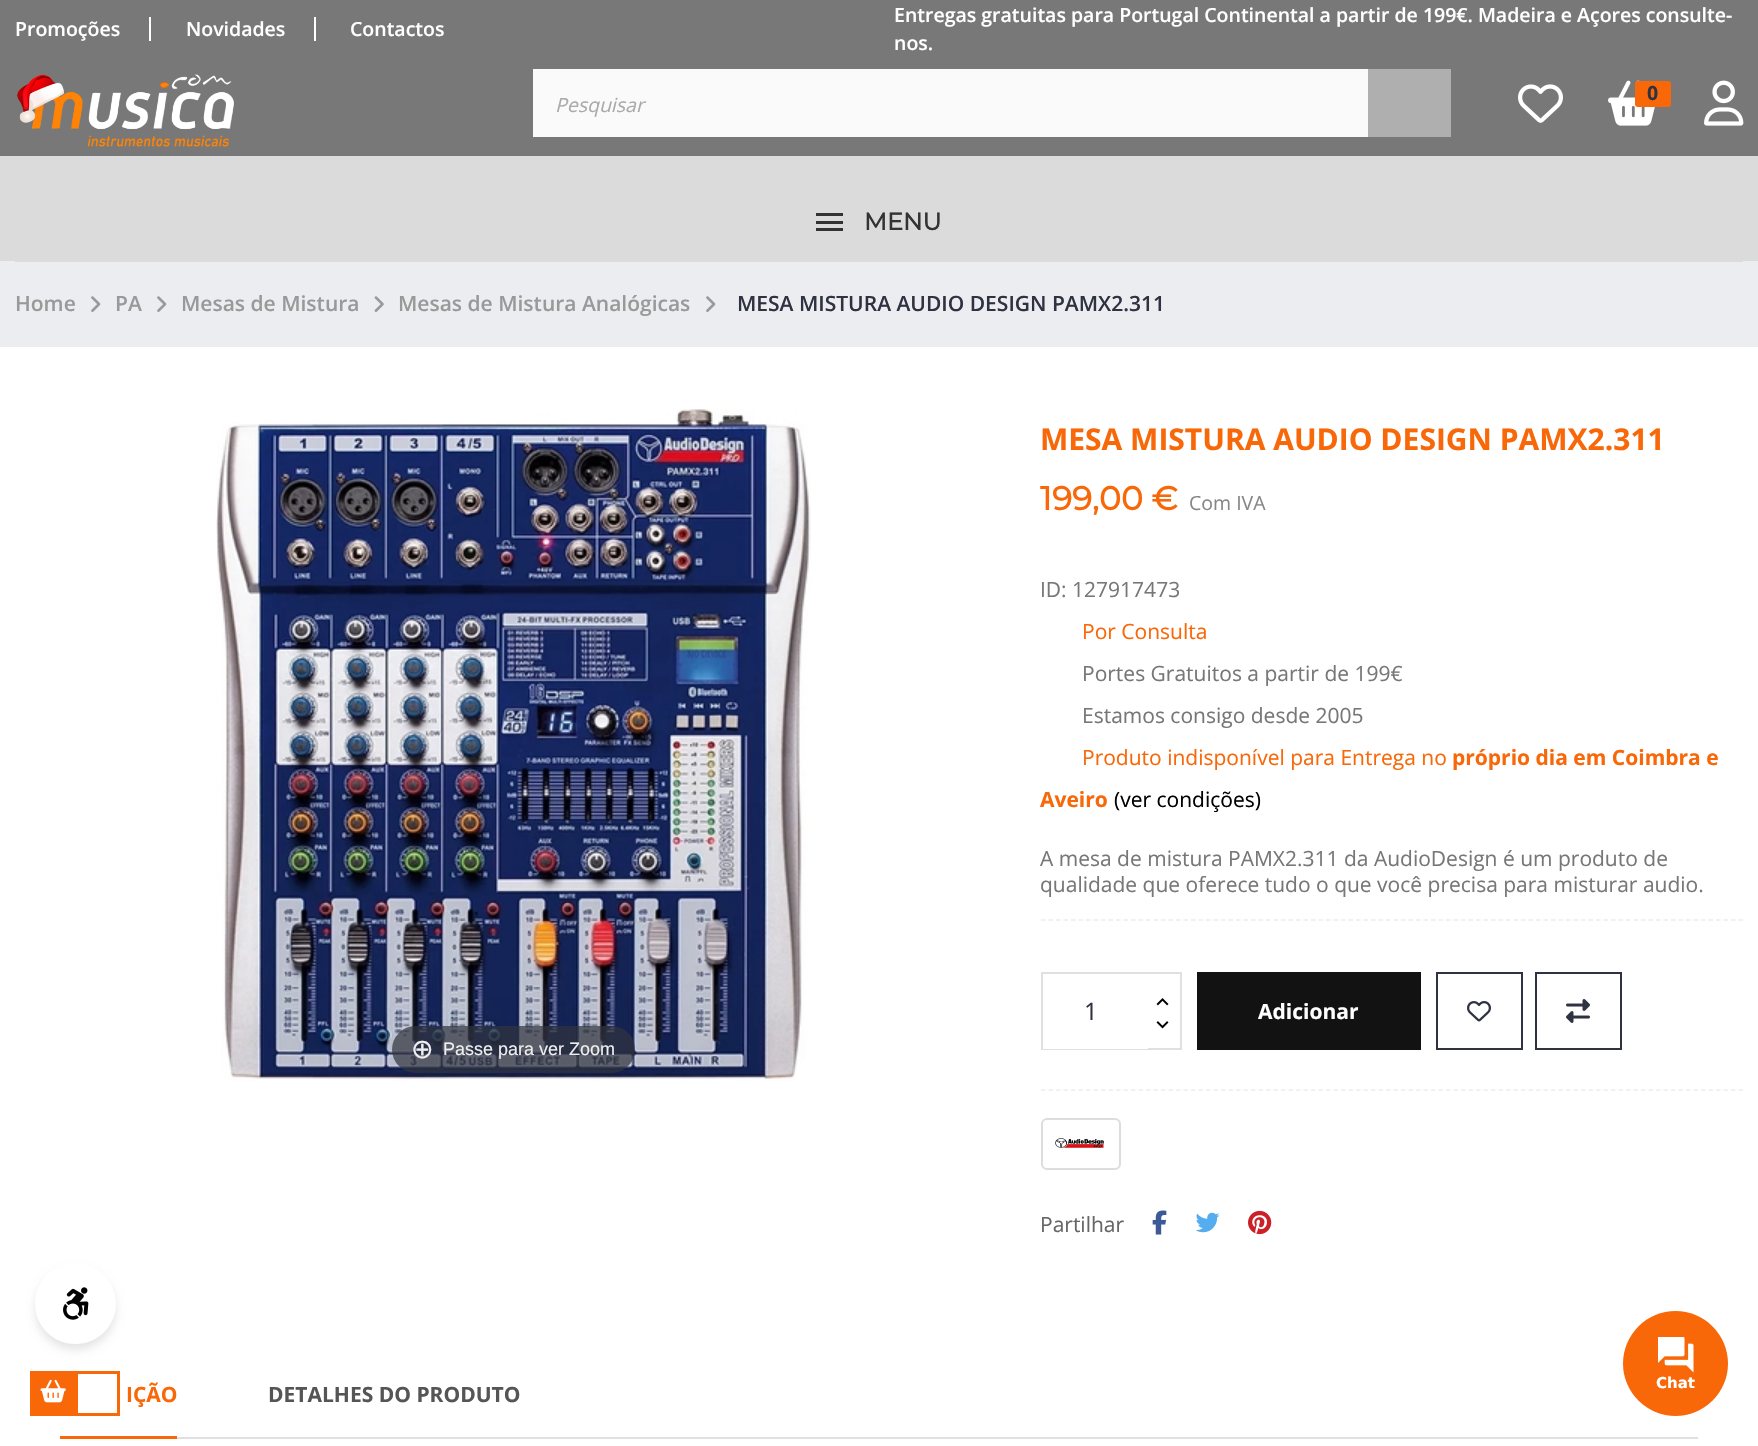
static SkFont makeFont(const char* family, int weight, float size, bool italic = false) {
  SkFontStyle style(weight, SkFontStyle::kNormal_Width,
    italic ? SkFontStyle::kItalic_Slant : SkFontStyle::kUpright_Slant);
  SkFont result(fontMgr->matchFamilyStyle(family, style), size);
  result.setSubpixel(true);
  return result;
}

static void text(SkCanvas* c, const char* s, float x, float y, const SkFont& font, SkColor color) {
  SkPaint ink(SkColor4f::FromColor(color));
  ink.setAntiAlias(true);
  c->drawString(s, x, y, font, ink);
}

static void box(SkCanvas* c, float l, float t, float r, float b, SkColor color) {
  SkPaint ink(SkColor4f::FromColor(color));
  ink.setAntiAlias(true);
  c->drawRect(SkRect::MakeLTRB(l, t, r, b), ink);
}

static void roundBox(SkCanvas* c, float l, float t, float r, float b, float radius, SkColor color) {
  SkPaint ink(SkColor4f::FromColor(color));
  ink.setAntiAlias(true);
  c->drawRoundRect(SkRect::MakeLTRB(l, t, r, b), radius, radius, ink);
}

static void picture(SkCanvas* c, const char* path, float l, float t, float r, float b) {
  auto image = SkImages::DeferredFromEncodedData(SkData::MakeFromFileName(path));
  c->drawImageRect(image, SkRect::MakeLTRB(l, t, r, b), SkSamplingOptions());
}

void draw(SkCanvas* c) {
  SkPaint paint;
  paint.setAntiAlias(true);
  c->clear(0xffffffff);
  box(c, 0, 0, 1758, 156, 0xff787878);
  SkFont face1 = makeFont("Open Sans", 600, 19.5f);
  text(c, "Promoções", 15, 36, face1, 0xffffffff);
  box(c, 149, 17, 151, 41, 0xffffffff);
  text(c, "Novidades", 186, 36, face1, 0xffffffff);
  box(c, 314, 17, 316, 41, 0xffffffff);
  text(c, "Contactos", 350, 36, face1, 0xffffffff);
  text(c, "Entregas gratuitas para Portugal Continental a partir de 199€. Madeira e Açores consulte-", 894, 22, face1, 0xffffffff);
  text(c, "nos.", 894, 50, face1, 0xffffffff);
  picture(c, "img_01.png", 17, 74, 234, 147);
  picture(c, "img_02.png", 1518, 84, 1563, 123);
  picture(c, "img_03.png", 1608, 80, 1655, 126);
  roundBox(c, 1635, 81, 1671, 107, 3, 0xfff86808);
  SkFont face2 = makeFont("Open Sans", 700, 19.5f);
  text(c, "0", 1647, 100, face2, 0xff2f3241);
  picture(c, "img_04.png", 1704, 80, 1744, 126);
  box(c, 533, 69, 1368, 137, 0xfffafafa);
  SkFont face3 = makeFont("Open Sans", 400, 19.5f, true);
  text(c, "Pesquisar", 555, 112, face3, 0xffaaaaaa);
  box(c, 1368, 69, 1451, 137, 0xffafafaf);
  box(c, 0, 156, 1758, 261, 0xffdbdbdb);
  box(c, 0, 261, 1758, 347, 0xffecedf1);
  box(c, 15, 261, 1743, 262, 0xffdbdbdb);
  box(c, 816, 213, 843, 216, 0xff333333);
  box(c, 816, 221, 843, 224, 0xff333333);
  box(c, 816, 228, 843, 231, 0xff333333);
  SkFont face4 = makeFont("Montserrat", 700, 24);
  text(c, "MENU", 864, 230, face4, 0xff333333);
  SkFont face5 = makeFont("Open Sans", 600, 21);
  text(c, "Home", 15, 311, face5, 0xff999999);
  picture(c, "img_05.png", 91, 296, 101, 312);
  text(c, "PA", 115, 311, face5, 0xff999999);
  picture(c, "img_05.png", 157, 296, 167, 312);
  text(c, "Mesas de Mistura", 181, 311, face5, 0xff999999);
  picture(c, "img_06.png", 374, 296, 384, 312);
  text(c, "Mesas de Mistura Analógicas", 398, 311, face5, 0xff999999);
  picture(c, "img_05.png", 706, 296, 716, 312);
  text(c, "MESA MISTURA AUDIO DESIGN PAMX2.311", 737, 311, face5, 0xff2f3241);
  picture(c, "img_07.png", 216, 409, 811, 1081);
  roundBox(c, 392, 1026, 635, 1073, 23.5f, 0xb331333d);
  SkFont face6 = makeFont("DejaVu Sans", 400, 27);
  text(c, "⊕", 411, 1058, face6, 0xffeeeeee);
  SkFont face7 = makeFont("Liberation Sans", 400, 18);
  text(c, "Passe para ver Zoom", 443, 1055, face7, 0xffeeeeee);
  SkFont face8 = makeFont("Open Sans", 700, 30);
  text(c, "MESA MISTURA AUDIO DESIGN PAMX2.311", 1040, 450, face8, 0xfff86808);
  SkFont face9 = makeFont("Montserrat", 700, 33);
  text(c, "199,00 €", 1040, 510, face9, 0xfff86808);
  SkFont face10 = makeFont("Open Sans", 400, 19.5f);
  text(c, "Com IVA", 1189, 510, face10, 0xff878787);
  SkFont face11 = makeFont("Open Sans", 400, 21);
  text(c, "ID: 127917473", 1040, 597, face11, 0xff777777);
  text(c, "Por Consulta", 1082, 639, face11, 0xfff86808);
  text(c, "Portes Gratuitos a partir de 199€", 1082, 681, face11, 0xff777777);
  text(c, "Estamos consigo desde 2005", 1082, 723, face11, 0xff777777);
  text(c, "Produto indisponível para Entrega no", 1082, 765, face11, 0xfff86808);
  SkFont face12 = makeFont("Open Sans", 700, 21);
  text(c, "próprio dia em Coimbra e", 1452, 765, face12, 0xfff86808);
  text(c, "Aveiro", 1040, 807, face12, 0xfff86808);
  text(c, "(ver condições)", 1114, 807, face11, 0xff000000);
  text(c, "A mesa de mistura PAMX2.311 da AudioDesign é um produto de", 1040, 866, face11, 0xff777777);
  text(c, "qualidade que oferece tudo o que você precisa para misturar audio.", 1040, 892, face11, 0xff777777);
  paint.setStyle(SkPaint::kStroke_Style);
  paint.setStrokeWidth(1.5f);
  paint.setColor(0xffecedf1);
  paint.setPathEffect(SkDashPathEffect::Make({{4.5f, 3}}, 0));
  c->drawPath(SkPathBuilder().moveTo(1041, 920).lineTo(1743, 920).detach(), paint);
  paint.setPathEffect(nullptr);
  paint.setPathEffect(SkDashPathEffect::Make({{4.5f, 3}}, 0));
  c->drawPath(SkPathBuilder().moveTo(1041, 1090).lineTo(1743, 1090).detach(), paint);
  paint.setPathEffect(nullptr);
  paint.setStrokeWidth(2);
  paint.setColor(0xffe0e0e0);
  c->drawRect(SkRect::MakeLTRB(1042, 973, 1181, 1049), paint);
  box(c, 1043, 1048, 1148, 1049, 0xffffffff);
  SkFont face13 = makeFont("Open Sans", 400, 24);
  text(c, "1", 1084, 1020, face13, 0xff2f3241);
  picture(c, "img_08.png", 1156, 998, 1169, 1006);
  picture(c, "img_09.png", 1156, 1021, 1169, 1029);
  box(c, 1197, 972, 1421, 1050, 0xff121212);
  text(c, "Adicionar", 1258, 1019, face12, 0xffffffff);
  paint.setColor(0xff2f3241);
  c->drawRect(SkRect::MakeLTRB(1437, 973, 1522, 1049), paint);
  picture(c, "img_10.png", 1467, 1001, 1491, 1022);
  c->drawRect(SkRect::MakeLTRB(1536, 973, 1621, 1049), paint);
  picture(c, "img_11.png", 1566, 999, 1590, 1023);
  paint.setColor(0xffdddddd);
  c->drawRoundRect(SkRect::MakeLTRB(1042, 1119, 1120, 1169), 5, 5, paint);
  picture(c, "img_12.png", 1055, 1138, 1104, 1148);
  text(c, "Partilhar", 1040, 1232, face11, 0xff666666);
  picture(c, "img_13.png", 1152, 1210, 1167, 1235);
  picture(c, "img_14.png", 1195, 1212, 1220, 1233);
  picture(c, "img_15.png", 1248, 1210, 1272, 1235);
  box(c, 177, 1437, 1698, 1439, 0xffe0e0e0);
  text(c, "IÇÃO", 126, 1402, face12, 0xfff86808);
  box(c, 60, 1436, 177, 1439, 0xfff86808);
  text(c, "DETALHES DO PRODUTO", 268, 1402, face12, 0xff555555);
  c->save();
  c->clipPath(SkPathBuilder(SkPathFillType::kEvenOdd).moveTo(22, 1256).lineTo(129, 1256).lineTo(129, 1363).lineTo(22, 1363).close().moveTo(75.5f, 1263).cubicTo(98, 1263, 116, 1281, 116, 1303.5f).cubicTo(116, 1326, 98, 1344, 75.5f, 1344).cubicTo(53, 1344, 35, 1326, 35, 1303.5f).cubicTo(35, 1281, 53, 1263, 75.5f, 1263).close().detach(), true);
  paint.setStyle(SkPaint::kFill_Style);
  paint.setColor(0x1a000000);
  paint.setMaskFilter(SkMaskFilter::MakeBlur(kNormal_SkBlurStyle, 4));
  c->drawRoundRect(SkRect::MakeLTRB(35, 1269, 116, 1350), 40.5f, 40.5f, paint);
  paint.setMaskFilter(nullptr);
  c->restore();
  picture(c, "img_16.png", 63, 1287, 89, 1320);
  box(c, 30, 1371, 75, 1416, 0xfff86808);
  picture(c, "img_17.png", 40, 1379, 66, 1403);
  paint.setStyle(SkPaint::kStroke_Style);
  paint.setStrokeWidth(3);
  paint.setColor(0xfff86808);
  c->drawRect(SkRect::MakeLTRB(76.5f, 1372.5f, 118.5f, 1414.5f), paint);
  paint.setStyle(SkPaint::kFill_Style);
  c->drawCircle(1675.5f, 1363.5f, 52.5f, paint);
  picture(c, "img_18.png", 1658, 1337, 1694, 1373);
  SkFont face14 = makeFont("DejaVu Sans", 700, 15);
  text(c, "Chat", 1656, 1388, face14, 0xffffffff);
}
